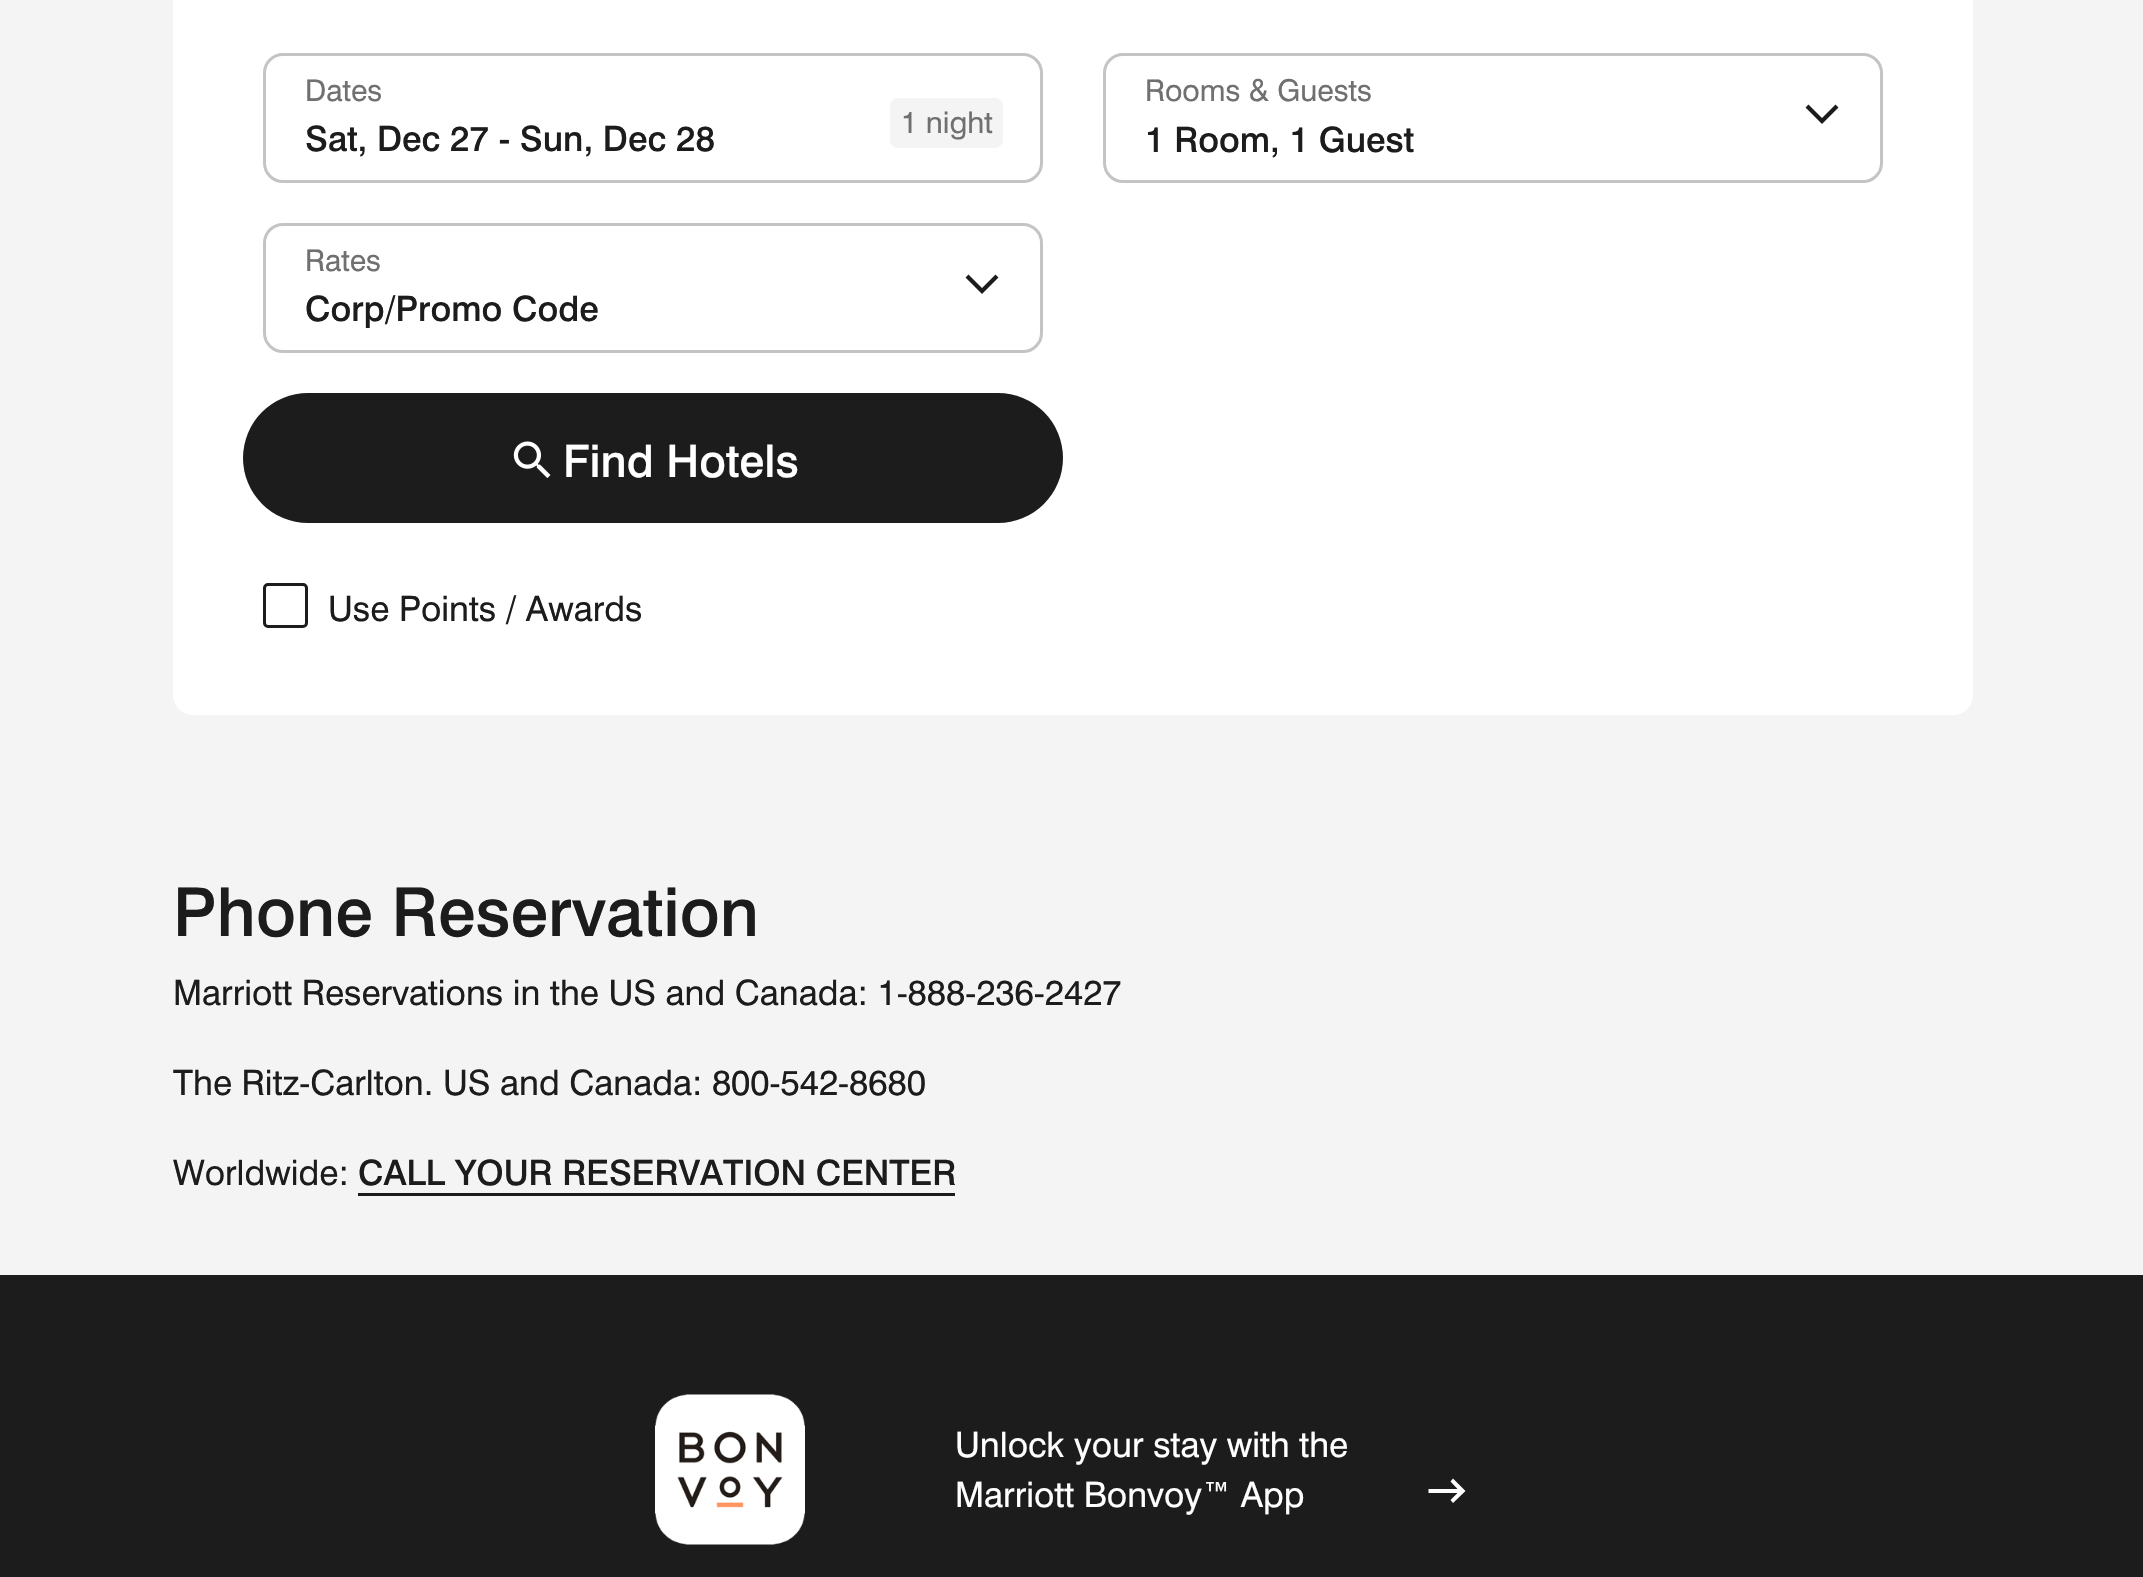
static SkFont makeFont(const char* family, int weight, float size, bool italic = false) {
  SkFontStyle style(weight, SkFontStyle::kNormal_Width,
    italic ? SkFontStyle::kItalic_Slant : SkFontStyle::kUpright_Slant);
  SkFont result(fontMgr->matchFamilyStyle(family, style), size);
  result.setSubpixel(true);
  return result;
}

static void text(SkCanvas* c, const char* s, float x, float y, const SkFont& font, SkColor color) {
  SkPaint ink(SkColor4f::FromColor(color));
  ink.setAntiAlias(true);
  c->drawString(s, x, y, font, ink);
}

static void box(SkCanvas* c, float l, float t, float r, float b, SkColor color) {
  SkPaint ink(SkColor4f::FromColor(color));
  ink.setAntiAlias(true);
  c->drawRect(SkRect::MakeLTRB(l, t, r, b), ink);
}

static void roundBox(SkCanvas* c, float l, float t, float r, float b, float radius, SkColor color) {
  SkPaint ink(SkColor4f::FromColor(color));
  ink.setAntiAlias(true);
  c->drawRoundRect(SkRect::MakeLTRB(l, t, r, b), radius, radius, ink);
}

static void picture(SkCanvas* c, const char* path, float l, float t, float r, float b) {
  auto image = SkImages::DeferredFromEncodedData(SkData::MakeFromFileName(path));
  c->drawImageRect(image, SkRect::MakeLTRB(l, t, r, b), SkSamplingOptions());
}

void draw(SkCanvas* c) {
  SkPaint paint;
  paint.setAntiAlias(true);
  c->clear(0xfff4f4f4);
  paint.setColor(0xffffffff);
  c->drawPath(SkPathBuilder().moveTo(173, -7).lineTo(1973, -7).lineTo(1973, 675).cubicTo(1973, 697, 1955, 715, 1933, 715).lineTo(213, 715).cubicTo(191, 715, 173, 697, 173, 675).close().detach(), paint);
  roundBox(c, 173, -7, 1973, 715, 20, 0xffffffff);
  paint.setStyle(SkPaint::kStroke_Style);
  paint.setStrokeWidth(3);
  paint.setColor(0xffc4c4c4);
  c->drawRoundRect(SkRect::MakeLTRB(264.5f, 54.5f, 1041.5f, 181.5f), 18.5f, 18.5f, paint);
  SkFont face1 = makeFont("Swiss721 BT", 400, 30);
  text(c, "Dates", 305, 101, face1, 0xff707070);
  SkFont face2 = makeFont("Swiss721 BT", 500, 35);
  text(c, "Sat, Dec 27 - Sun, Dec 28", 305, 151, face2, 0xff1c1c1c);
  roundBox(c, 890, 98, 1003, 148, 8, 0xfff4f4f4);
  text(c, "1 night", 901, 133, face1, 0xff707070);
  c->drawRoundRect(SkRect::MakeLTRB(1104.5f, 54.5f, 1881.5f, 181.5f), 18.5f, 18.5f, paint);
  text(c, "Rooms & Guests", 1145, 101, face1, 0xff707070);
  paint.setStyle(SkPaint::kFill_Style);
  paint.setColor(0xff1c1c1c);
  c->drawPath(SkPathBuilder().moveTo(1808.5f, 104.5f).lineTo(1805.5f, 107.5f).lineTo(1822, 124).lineTo(1838.5f, 107.5f).lineTo(1835.5f, 104.5f).lineTo(1822, 118).close().detach(), paint);
  text(c, "1 Room, 1 Guest", 1145, 152, face2, 0xff1c1c1c);
  paint.setStyle(SkPaint::kStroke_Style);
  paint.setColor(0xffc4c4c4);
  c->drawRoundRect(SkRect::MakeLTRB(264.5f, 224.5f, 1041.5f, 351.5f), 18.5f, 18.5f, paint);
  text(c, "Rates", 305, 271, face1, 0xff707070);
  paint.setStyle(SkPaint::kFill_Style);
  paint.setColor(0xff1c1c1c);
  c->drawPath(SkPathBuilder().moveTo(968.5f, 274.5f).lineTo(965.5f, 277.5f).lineTo(982, 294).lineTo(998.5f, 277.5f).lineTo(995.5f, 274.5f).lineTo(982, 288).close().detach(), paint);
  c->save();
  c->clipRect(SkRect::MakeLTRB(305, 288, 940, 328));
  text(c, "Corp/Promo Code", 305, 321, face2, 0xff1c1c1c);
  c->restore();
  roundBox(c, 243, 393, 1063, 523, 65, 0xff1c1c1c);
  picture(c, "img_01.png", 513, 441, 551, 478);
  SkFont face3 = makeFont("Swiss721 BT", 500, 45);
  text(c, "Find Hotels", 563, 477, face3, 0xffffffff);
  paint.setStyle(SkPaint::kStroke_Style);
  c->drawRoundRect(SkRect::MakeLTRB(264.5f, 584.5f, 306.5f, 626.5f), 3.5f, 3.5f, paint);
  SkFont face4 = makeFont("Swiss721 BT", 400, 35);
  text(c, "Use Points / Awards", 328, 621, face4, 0xff1c1c1c);
  SkFont face5 = makeFont("Swiss721 BT", 500, 67.5f);
  text(c, "Phone Reservation", 173, 936, face5, 0xff1c1c1c);
  text(c, "Marriott Reservations in the US and Canada: 1-888-236-2427", 173, 1005, face4, 0xff1c1c1c);
  text(c, "The Ritz-Carlton. US and Canada: 800-542-8680", 173, 1095, face4, 0xff1c1c1c);
  text(c, "Worldwide:", 173, 1185, face4, 0xff1c1c1c);
  text(c, "CALL YOUR RESERVATION CENTER", 358, 1185, face2, 0xff1c1c1c);
  box(c, 358, 1193, 955, 1196, 0xff1c1c1c);
  box(c, 0, 1275, 2143, 1577, 0xff1c1c1c);
  picture(c, "img_02.png", 655, 1394, 805, 1545);
  text(c, "Unlock your stay with the", 955, 1457, face4, 0xffffffff);
  text(c, "Marriott Bonvoy™ App", 955, 1507, face4, 0xffffffff);
  paint.setStyle(SkPaint::kFill_Style);
  paint.setColor(0xffffffff);
  c->drawPath(SkPathBuilder().moveTo(1428.5f, 1489).lineTo(1457.5f, 1489).lineTo(1450.5f, 1481.5f).lineTo(1453, 1478.5f).lineTo(1465.5f, 1491).lineTo(1453, 1503).lineTo(1450.5f, 1500).lineTo(1457.5f, 1493).lineTo(1428.5f, 1493).close().detach(), paint);
}
